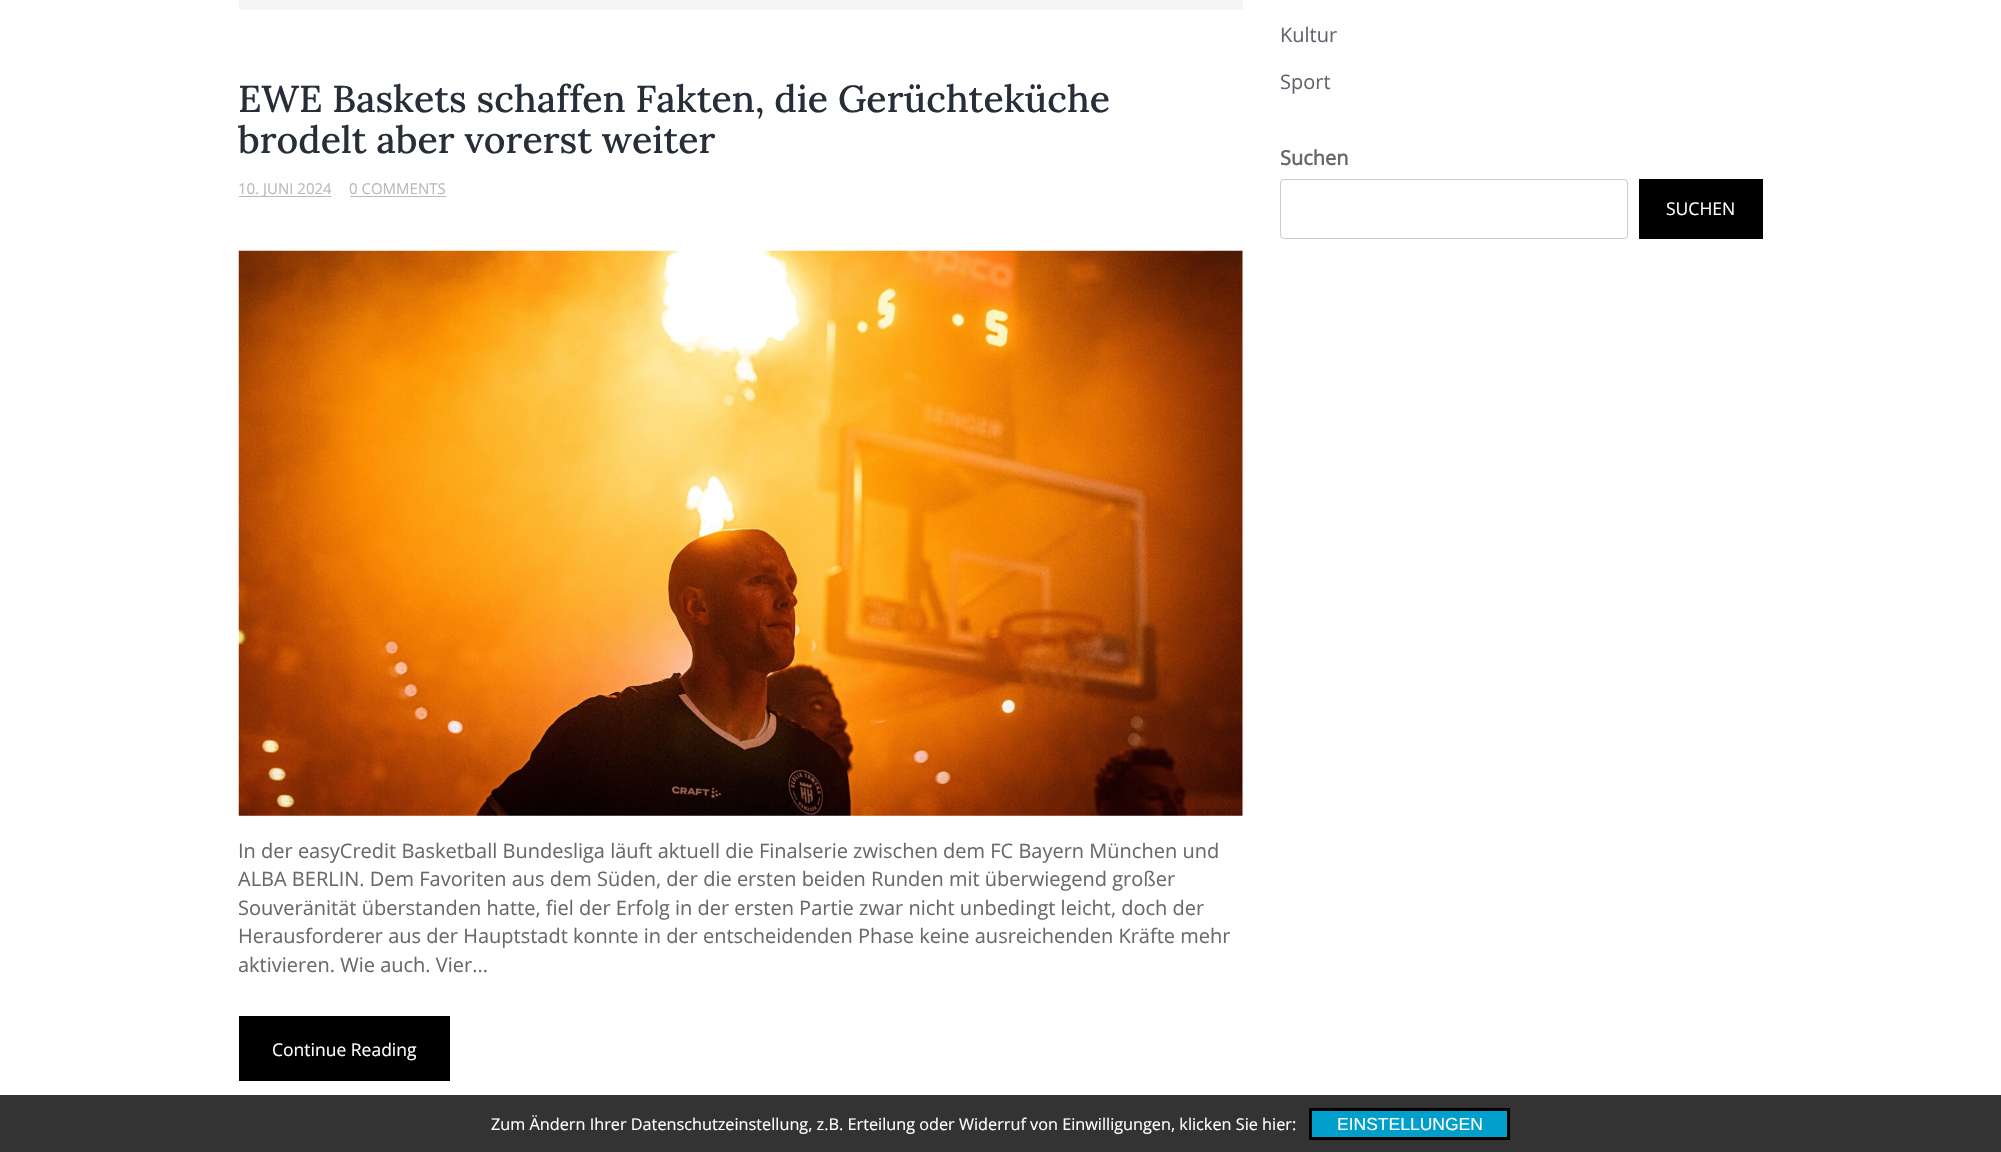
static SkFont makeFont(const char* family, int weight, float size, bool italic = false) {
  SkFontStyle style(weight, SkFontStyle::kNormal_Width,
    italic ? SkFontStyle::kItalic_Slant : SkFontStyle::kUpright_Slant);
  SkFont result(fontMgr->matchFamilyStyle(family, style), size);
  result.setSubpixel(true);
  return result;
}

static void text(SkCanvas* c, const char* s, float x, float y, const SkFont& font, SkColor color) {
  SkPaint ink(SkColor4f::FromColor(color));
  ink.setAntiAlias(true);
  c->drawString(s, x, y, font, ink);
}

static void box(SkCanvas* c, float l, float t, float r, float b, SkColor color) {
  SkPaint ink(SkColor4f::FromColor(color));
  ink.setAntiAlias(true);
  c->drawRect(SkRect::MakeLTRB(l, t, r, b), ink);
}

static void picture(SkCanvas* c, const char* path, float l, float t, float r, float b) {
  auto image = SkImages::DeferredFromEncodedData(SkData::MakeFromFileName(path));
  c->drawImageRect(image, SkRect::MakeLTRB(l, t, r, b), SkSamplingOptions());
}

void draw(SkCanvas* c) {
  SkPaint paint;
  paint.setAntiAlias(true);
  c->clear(0xffffffff);
  box(c, 239, 0, 1243, 10, 0xfff5f5f5);
  SkFont face1 = makeFont("Lora", 500, 37.5f);
  text(c, "EWE Baskets schaffen Fakten, die Gerüchteküche", 238, 112, face1, 0xff272e37);
  text(c, "brodelt aber vorerst weiter", 238, 153, face1, 0xff272e37);
  box(c, 239, 196, 331, 197, 0xffb9b9b9);
  SkFont face2 = makeFont("Open Sans", 400, 15);
  text(c, "10. JUNI 2024", 238, 194, face2, 0xffb9b9b9);
  text(c, "0 COMMENTS", 349, 194, face2, 0xffb9b9b9);
  box(c, 350, 196, 446, 197, 0xffb9b9b9);
  picture(c, "img_01.png", 238, 250, 1243, 816);
  SkFont face3 = makeFont("Open Sans", 400, 20);
  text(c, "In der easyCredit Basketball Bundesliga läuft aktuell die Finalserie zwischen dem FC Bayern München und", 238, 858, face3, 0xff696969);
  text(c, "ALBA BERLIN. Dem Favoriten aus dem Süden, der die ersten beiden Runden mit überwiegend großer", 238, 886, face3, 0xff696969);
  text(c, "Souveränität überstanden hatte, fiel der Erfolg in der ersten Partie zwar nicht unbedingt leicht, doch der", 238, 915, face3, 0xff696969);
  text(c, "Herausforderer aus der Hauptstadt konnte in der entscheidenden Phase keine ausreichenden Kräfte mehr", 238, 943, face3, 0xff696969);
  text(c, "aktivieren. Wie auch. Vier...", 238, 972, face3, 0xff696969);
  box(c, 239, 1016, 450, 1081, 0xff000000);
  SkFont face4 = makeFont("Open Sans", 400, 17.5f);
  text(c, "Continue Reading", 272, 1056, face4, 0xffffffff);
  text(c, "Kultur", 1280, 42, face3, 0xff62646c);
  text(c, "Sport", 1280, 89, face3, 0xff62646c);
  SkFont face5 = makeFont("Open Sans", 700, 20);
  text(c, "Suchen", 1280, 165, face5, 0xff696969);
  paint.setStyle(SkPaint::kStroke_Style);
  paint.setStrokeWidth(1);
  paint.setColor(0xffcccccc);
  c->drawRoundRect(SkRect::MakeLTRB(1280.5f, 179.5f, 1627.5f, 238.5f), 3.5f, 3.5f, paint);
  box(c, 1639, 179, 1763, 239, 0xff000000);
  text(c, "SUCHEN", 1666, 215, face4, 0xffffffff);
  box(c, 0, 1095, 2001, 1152, 0xff333333);
  SkFont face6 = makeFont("Open Sans", 400, 16.25f);
  text(c, "Zum Ändern Ihrer Datenschutzeinstellung, z.B. Erteilung oder Widerruf von Einwilligungen, klicken Sie hier:", 491, 1130, face6, 0xffffffff);
  paint.setStyle(SkPaint::kFill_Style);
  paint.setColor(0xff009ecb);
  c->drawRect(SkRect::MakeLTRB(1310.5f, 1109.5f, 1508.5f, 1138.5f), paint);
  paint.setStyle(SkPaint::kStroke_Style);
  paint.setStrokeWidth(3);
  paint.setColor(0xff000000);
  c->drawRect(SkRect::MakeLTRB(1310.5f, 1109.5f, 1508.5f, 1138.5f), paint);
  SkFont face7 = makeFont("Liberation Sans", 400, 17.5f);
  text(c, "EINSTELLUNGEN", 1337, 1130, face7, 0xffffffff);
}
